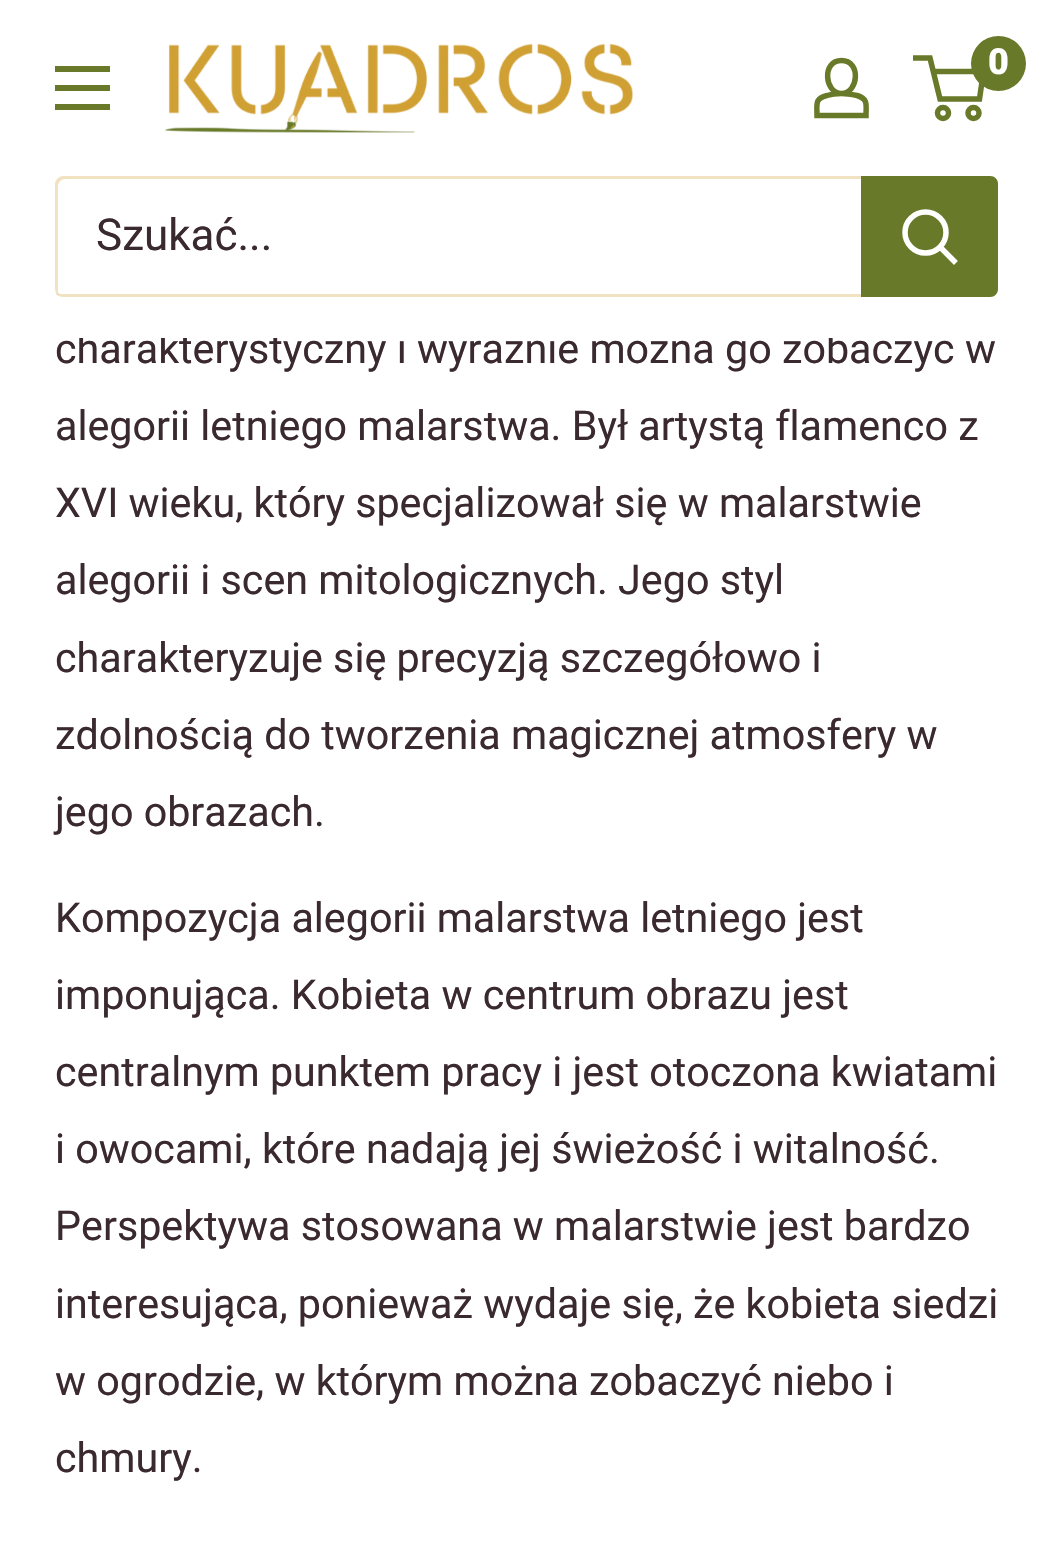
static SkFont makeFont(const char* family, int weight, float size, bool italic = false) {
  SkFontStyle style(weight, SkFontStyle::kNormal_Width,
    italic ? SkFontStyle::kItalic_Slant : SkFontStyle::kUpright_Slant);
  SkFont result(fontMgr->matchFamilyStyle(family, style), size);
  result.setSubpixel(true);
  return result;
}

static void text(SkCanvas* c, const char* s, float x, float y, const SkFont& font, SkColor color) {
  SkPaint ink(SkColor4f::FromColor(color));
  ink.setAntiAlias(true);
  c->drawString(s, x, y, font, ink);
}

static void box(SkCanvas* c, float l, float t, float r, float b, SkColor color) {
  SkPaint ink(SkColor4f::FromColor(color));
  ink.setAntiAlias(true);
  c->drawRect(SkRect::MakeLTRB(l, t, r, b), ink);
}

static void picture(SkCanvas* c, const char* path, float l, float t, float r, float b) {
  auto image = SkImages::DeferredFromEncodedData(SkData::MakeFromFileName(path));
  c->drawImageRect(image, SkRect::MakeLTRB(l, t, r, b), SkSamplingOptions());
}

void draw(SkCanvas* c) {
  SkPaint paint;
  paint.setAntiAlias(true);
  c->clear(0xffffffff);
  picture(c, "img_01.png", 165, 43, 633, 133);
  paint.setStyle(SkPaint::kStroke_Style);
  paint.setStrokeWidth(5.5f);
  paint.setColor(0xff687a2a);
  c->drawPath(SkPathBuilder().moveTo(841.5f, 93.5f).cubicTo(846.5f, 93.5f, 852, 94.5f, 857, 95.5f).cubicTo(868.5f, 99, 866, 105, 866, 115.5f).lineTo(817, 115.5f).cubicTo(817, 104.5f, 814.5f, 98.5f, 827, 95.5f).cubicTo(831.5f, 94, 836.5f, 93.5f, 841.5f, 93.5f).close().moveTo(841.5f, 93.5f).cubicTo(824.5f, 93.5f, 821.5f, 60.5f, 841.5f, 60.5f).cubicTo(861.5f, 60.5f, 858.5f, 93.5f, 841.5f, 93.5f).close().detach(), paint);
  c->drawCircle(943, 113, 5.5f, paint);
  c->drawCircle(973.5f, 113, 5.5f, paint);
  c->drawPath(SkPathBuilder().moveTo(933, 71.5f).lineTo(983.5f, 71.5f).lineTo(979.5f, 99).lineTo(940, 99).lineTo(930, 58).lineTo(913, 58).detach(), paint);
  paint.setStyle(SkPaint::kFill_Style);
  c->drawCircle(998.5f, 63.5f, 27.5f, paint);
  SkFont face1 = makeFont("Roboto", 900, 36);
  text(c, "0", 988, 74, face1, 0xffffffff);
  c->drawPath(SkPathBuilder(SkPathFillType::kEvenOdd).moveTo(55, 104).lineTo(110, 104).lineTo(110, 110).lineTo(55, 110).close().moveTo(55, 66).lineTo(110, 66).lineTo(110, 72).lineTo(55, 72).close().moveTo(55, 85).lineTo(110, 85).lineTo(110, 91).lineTo(55, 91).close().detach(), paint);
  SkFont face2 = makeFont("Roboto", 400, 41.25f);
  text(c, "charakterystyczny i wyraźnie można go zobaczyć w", 55, 363, face2, 0xff3a2a2f);
  box(c, 79, 332, 951, 338, 0xffffffff);
  paint.setColor(0xfff1e3c2);
  c->drawPath(SkPathBuilder().moveTo(56, 293).cubicTo(57, 295, 60, 297, 63, 297).lineTo(990, 297).cubicTo(994, 297, 998, 293, 998, 289).lineTo(998, 184).cubicTo(998, 181, 997, 179, 995, 178).cubicTo(996, 179, 996, 180, 996, 182).lineTo(996, 286).cubicTo(996, 291, 992, 294, 987, 294).lineTo(60, 294).close().detach(), paint);
  paint.setColor(0x4dd0a034);
  c->drawPath(SkPathBuilder().moveTo(66, 179).lineTo(993, 179).lineTo(997, 180).cubicTo(996, 178, 993, 176, 990, 176).lineTo(63, 176).cubicTo(59, 176, 55, 180, 55, 184).lineTo(55, 289).cubicTo(55, 292, 57, 295, 59, 296).lineTo(58, 292).lineTo(58, 187).cubicTo(58, 182, 61, 179, 66, 179).close().detach(), paint);
  SkFont face3 = makeFont("Roboto", 400, 44);
  text(c, "Szukać...", 96, 250, face3, 0xff3a2a2f);
  paint.setColor(0xff687a2a);
  c->drawPath(SkPathBuilder().moveTo(861, 176).lineTo(990, 176).cubicTo(994.5f, 176, 998, 179.5f, 998, 184).lineTo(998, 289).cubicTo(998, 293.5f, 994.5f, 297, 990, 297).lineTo(861, 297).close().detach(), paint);
  paint.setStyle(SkPaint::kStroke_Style);
  paint.setStrokeCap(SkPaint::kSquare_Cap);
  paint.setColor(0xffffffff);
  c->drawPath(SkPathBuilder().moveTo(954, 261).lineTo(940.5f, 247.5f).detach(), paint);
  paint.setStrokeCap(SkPaint::kButt_Cap);
  c->drawCircle(925.5f, 232.5f, 20.5f, paint);
  text(c, "alegorii letniego malarstwa. Był artystą flamenco z", 55, 440, face2, 0xff3a2a2f);
  text(c, "XVI wieku, który specjalizował się w malarstwie", 55, 517, face2, 0xff3a2a2f);
  text(c, "alegorii i scen mitologicznych. Jego styl", 55, 594, face2, 0xff3a2a2f);
  text(c, "charakteryzuje się precyzją szczegółowo i", 55, 672, face2, 0xff3a2a2f);
  text(c, "zdolnością do tworzenia magicznej atmosfery w", 55, 749, face2, 0xff3a2a2f);
  text(c, "jego obrazach.", 55, 826, face2, 0xff3a2a2f);
  text(c, "Kompozycja alegorii malarstwa letniego jest", 55, 932, face2, 0xff3a2a2f);
  text(c, "imponująca. Kobieta w centrum obrazu jest", 55, 1009, face2, 0xff3a2a2f);
  text(c, "centralnym punktem pracy i jest otoczona kwiatami", 55, 1086, face2, 0xff3a2a2f);
  text(c, "i owocami, które nadają jej świeżość i witalność.", 55, 1163, face2, 0xff3a2a2f);
  text(c, "Perspektywa stosowana w malarstwie jest bardzo", 55, 1240, face2, 0xff3a2a2f);
  text(c, "interesująca, ponieważ wydaje się, że kobieta siedzi", 55, 1318, face2, 0xff3a2a2f);
  text(c, "w ogrodzie, w którym można zobaczyć niebo i", 55, 1395, face2, 0xff3a2a2f);
  text(c, "chmury.", 55, 1472, face2, 0xff3a2a2f);
}
